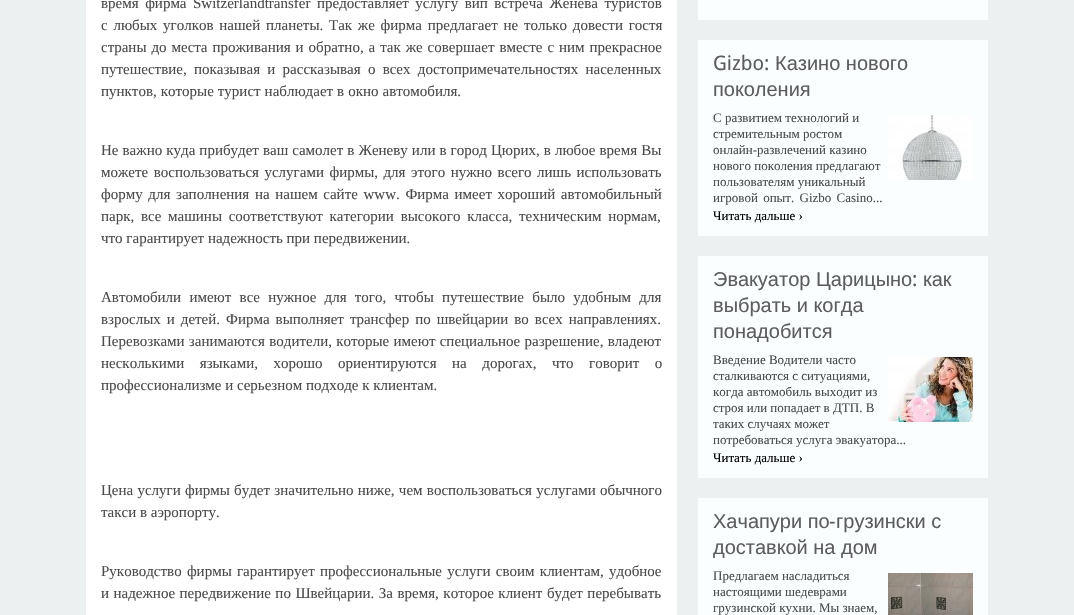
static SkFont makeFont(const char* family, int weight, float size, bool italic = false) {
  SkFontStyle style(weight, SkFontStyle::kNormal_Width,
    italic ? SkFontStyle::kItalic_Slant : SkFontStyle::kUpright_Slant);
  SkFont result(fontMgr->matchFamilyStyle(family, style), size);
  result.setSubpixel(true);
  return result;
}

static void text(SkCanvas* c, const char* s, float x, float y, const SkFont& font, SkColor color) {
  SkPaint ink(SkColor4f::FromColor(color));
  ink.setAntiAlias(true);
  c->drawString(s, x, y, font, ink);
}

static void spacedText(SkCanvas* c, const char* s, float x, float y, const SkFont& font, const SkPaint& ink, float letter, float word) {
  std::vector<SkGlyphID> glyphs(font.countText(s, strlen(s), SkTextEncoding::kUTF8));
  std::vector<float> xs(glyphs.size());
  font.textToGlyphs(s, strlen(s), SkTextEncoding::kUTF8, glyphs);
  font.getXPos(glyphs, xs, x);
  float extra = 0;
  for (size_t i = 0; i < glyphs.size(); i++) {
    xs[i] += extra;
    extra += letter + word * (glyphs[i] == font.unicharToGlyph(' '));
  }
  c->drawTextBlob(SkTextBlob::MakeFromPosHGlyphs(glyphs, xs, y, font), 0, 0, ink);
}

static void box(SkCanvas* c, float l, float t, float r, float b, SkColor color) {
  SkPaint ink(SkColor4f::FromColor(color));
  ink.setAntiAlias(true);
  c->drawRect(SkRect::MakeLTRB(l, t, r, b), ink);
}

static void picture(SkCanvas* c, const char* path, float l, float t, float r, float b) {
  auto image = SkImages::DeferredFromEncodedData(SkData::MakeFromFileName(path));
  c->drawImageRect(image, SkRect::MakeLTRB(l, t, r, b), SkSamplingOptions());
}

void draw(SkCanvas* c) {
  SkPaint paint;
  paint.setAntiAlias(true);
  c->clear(0xffecf0f1);
  box(c, 86, 0, 677, 615, 0xffffffff);
  SkFont face1 = makeFont("Liberation Serif", 400, 15);
  paint.setColor(0xff4b4b4c);
  spacedText(c, "время фирма Switzerlandtransfer предоставляет услугу вип встреча Женева туристов", 101, 8, face1, paint, 0, 2.75f);
  spacedText(c, "с любых уголков нашей планеты. Так же фирма предлагает не только довести гостя", 101, 30, face1, paint, 0, 2);
  spacedText(c, "страны до места проживания и обратно, а так же совершает вместе с ним прекрасное", 101, 52, face1, paint, 0, 1.2f);
  spacedText(c, "путешествие, показывая и рассказывая о всех достопримечательностях населенных", 101, 74, face1, paint, 0, 3.5f);
  spacedText(c, "пунктов, которые турист наблюдает в окно автомобиля.", 101, 96, face1, paint, 0, 0.25f);
  spacedText(c, "Не важно куда прибудет ваш самолет в Женеву или в город Цюрих, в любое время Вы", 101, 155, face1, paint, 0, 0.3f);
  spacedText(c, "можете воспользоваться услугами фирмы, для этого нужно всего лишь использовать", 101, 177, face1, paint, 0, 1.75f);
  spacedText(c, "форму для заполнения на нашем сайте www. Фирма имеет хороший автомобильный", 101, 199, face1, paint, 0, 1.9f);
  spacedText(c, "парк, все машины соответствуют категории высокого класса, техническим нормам,", 101, 221, face1, paint, 0, 3);
  text(c, "что гарантирует надежность при передвижении.", 101, 243, face1, 0xff4b4b4c);
  spacedText(c, "Автомобили имеют все нужное для того, чтобы путешествие было удобным для", 101, 302, face1, paint, 0, 4.5f);
  spacedText(c, "взрослых и детей. Фирма выполняет трансфер по швейцарии во всех направлениях.", 101, 324, face1, paint, 0, 2.25f);
  spacedText(c, "Перевозками занимаются водители, которые имеют специальное разрешение, владеют", 101, 346, face1, paint, 0, 0.5f);
  spacedText(c, "несколькими языками, хорошо ориентируются на дорогах, что говорит о", 101, 368, face1, paint, 0, 11.75f);
  text(c, "профессионализме и серьезном подходе к клиентам.", 101, 390, face1, 0xff4b4b4c);
  spacedText(c, "Цена услуги фирмы будет значительно ниже, чем воспользоваться услугами обычного", 101, 495, face1, paint, 0, 0.5f);
  text(c, "такси в аэропорту.", 101, 517, face1, 0xff4b4b4c);
  spacedText(c, "Руководство фирмы гарантирует профессиональные услуги своим клиентам, удобное", 101, 576, face1, paint, 0, 1.5f);
  spacedText(c, "и надежное передвижение по Швейцарии. За время, которое клиент будет перебывать", 101, 598, face1, paint, 0, 0.75f);
  box(c, 698, 0, 988, 20, 0xfffafeff);
  box(c, 698, 40, 988, 236, 0xfffafeff);
  SkFont face2 = makeFont("Droid Sans", 400, 20);
  text(c, "Gizbo:", 713, 70, face2, 0xff5d5d5e);
  SkFont face3 = makeFont("Liberation Sans", 400, 20);
  text(c, "Казино нового", 775, 70, face3, 0xff5d5d5e);
  text(c, "поколения", 713, 96, face3, 0xff5d5d5e);
  SkFont face4 = makeFont("Liberation Serif", 400, 13);
  text(c, "С развитием технологий и", 713, 122, face4, 0xff4b4b4c);
  text(c, "стремительным ростом", 713, 138, face4, 0xff4b4b4c);
  text(c, "онлайн-развлечений казино", 713, 154, face4, 0xff4b4b4c);
  text(c, "нового поколения предлагают", 713, 170, face4, 0xff4b4b4c);
  text(c, "пользователям уникальный", 713, 186, face4, 0xff4b4b4c);
  spacedText(c, "игровой опыт. Gizbo Casino...", 713, 202, face4, paint, 0, 2);
  picture(c, "img_01.png", 888, 115, 973, 180);
  text(c, "Читать дальше ›", 713, 220, face4, 0xff000000);
  box(c, 698, 256, 988, 478, 0xfffafeff);
  text(c, "Эвакуатор Царицыно", 713, 286, face3, 0xff5d5d5e);
  text(c, ":", 912, 286, face2, 0xff5d5d5e);
  text(c, "как", 923, 286, face3, 0xff5d5d5e);
  text(c, "выбрать и когда", 713, 312, face3, 0xff5d5d5e);
  text(c, "понадобится", 713, 338, face3, 0xff5d5d5e);
  text(c, "Введение Водители часто", 713, 364, face4, 0xff4b4b4c);
  text(c, "сталкиваются с ситуациями,", 713, 380, face4, 0xff4b4b4c);
  text(c, "когда автомобиль выходит из", 713, 396, face4, 0xff4b4b4c);
  text(c, "строя или попадает в ДТП. В", 713, 412, face4, 0xff4b4b4c);
  text(c, "таких случаях может", 713, 428, face4, 0xff4b4b4c);
  text(c, "потребоваться услуга эвакуатора...", 713, 444, face4, 0xff4b4b4c);
  picture(c, "img_02.png", 888, 357, 973, 422);
  text(c, "Читать дальше ›", 713, 462, face4, 0xff000000);
  box(c, 698, 498, 988, 615, 0xfffafeff);
  text(c, "Хачапури по", 713, 528, face3, 0xff5d5d5e);
  text(c, "-", 829, 528, face2, 0xff5d5d5e);
  text(c, "грузински с", 836, 528, face3, 0xff5d5d5e);
  text(c, "доставкой на дом", 713, 554, face3, 0xff5d5d5e);
  text(c, "Предлагаем насладиться", 713, 580, face4, 0xff4b4b4c);
  text(c, "настоящими шедеврами", 713, 596, face4, 0xff4b4b4c);
  text(c, "грузинской кухни. Мы знаем,", 713, 612, face4, 0xff4b4b4c);
  picture(c, "img_03.png", 888, 573, 973, 615);
}
